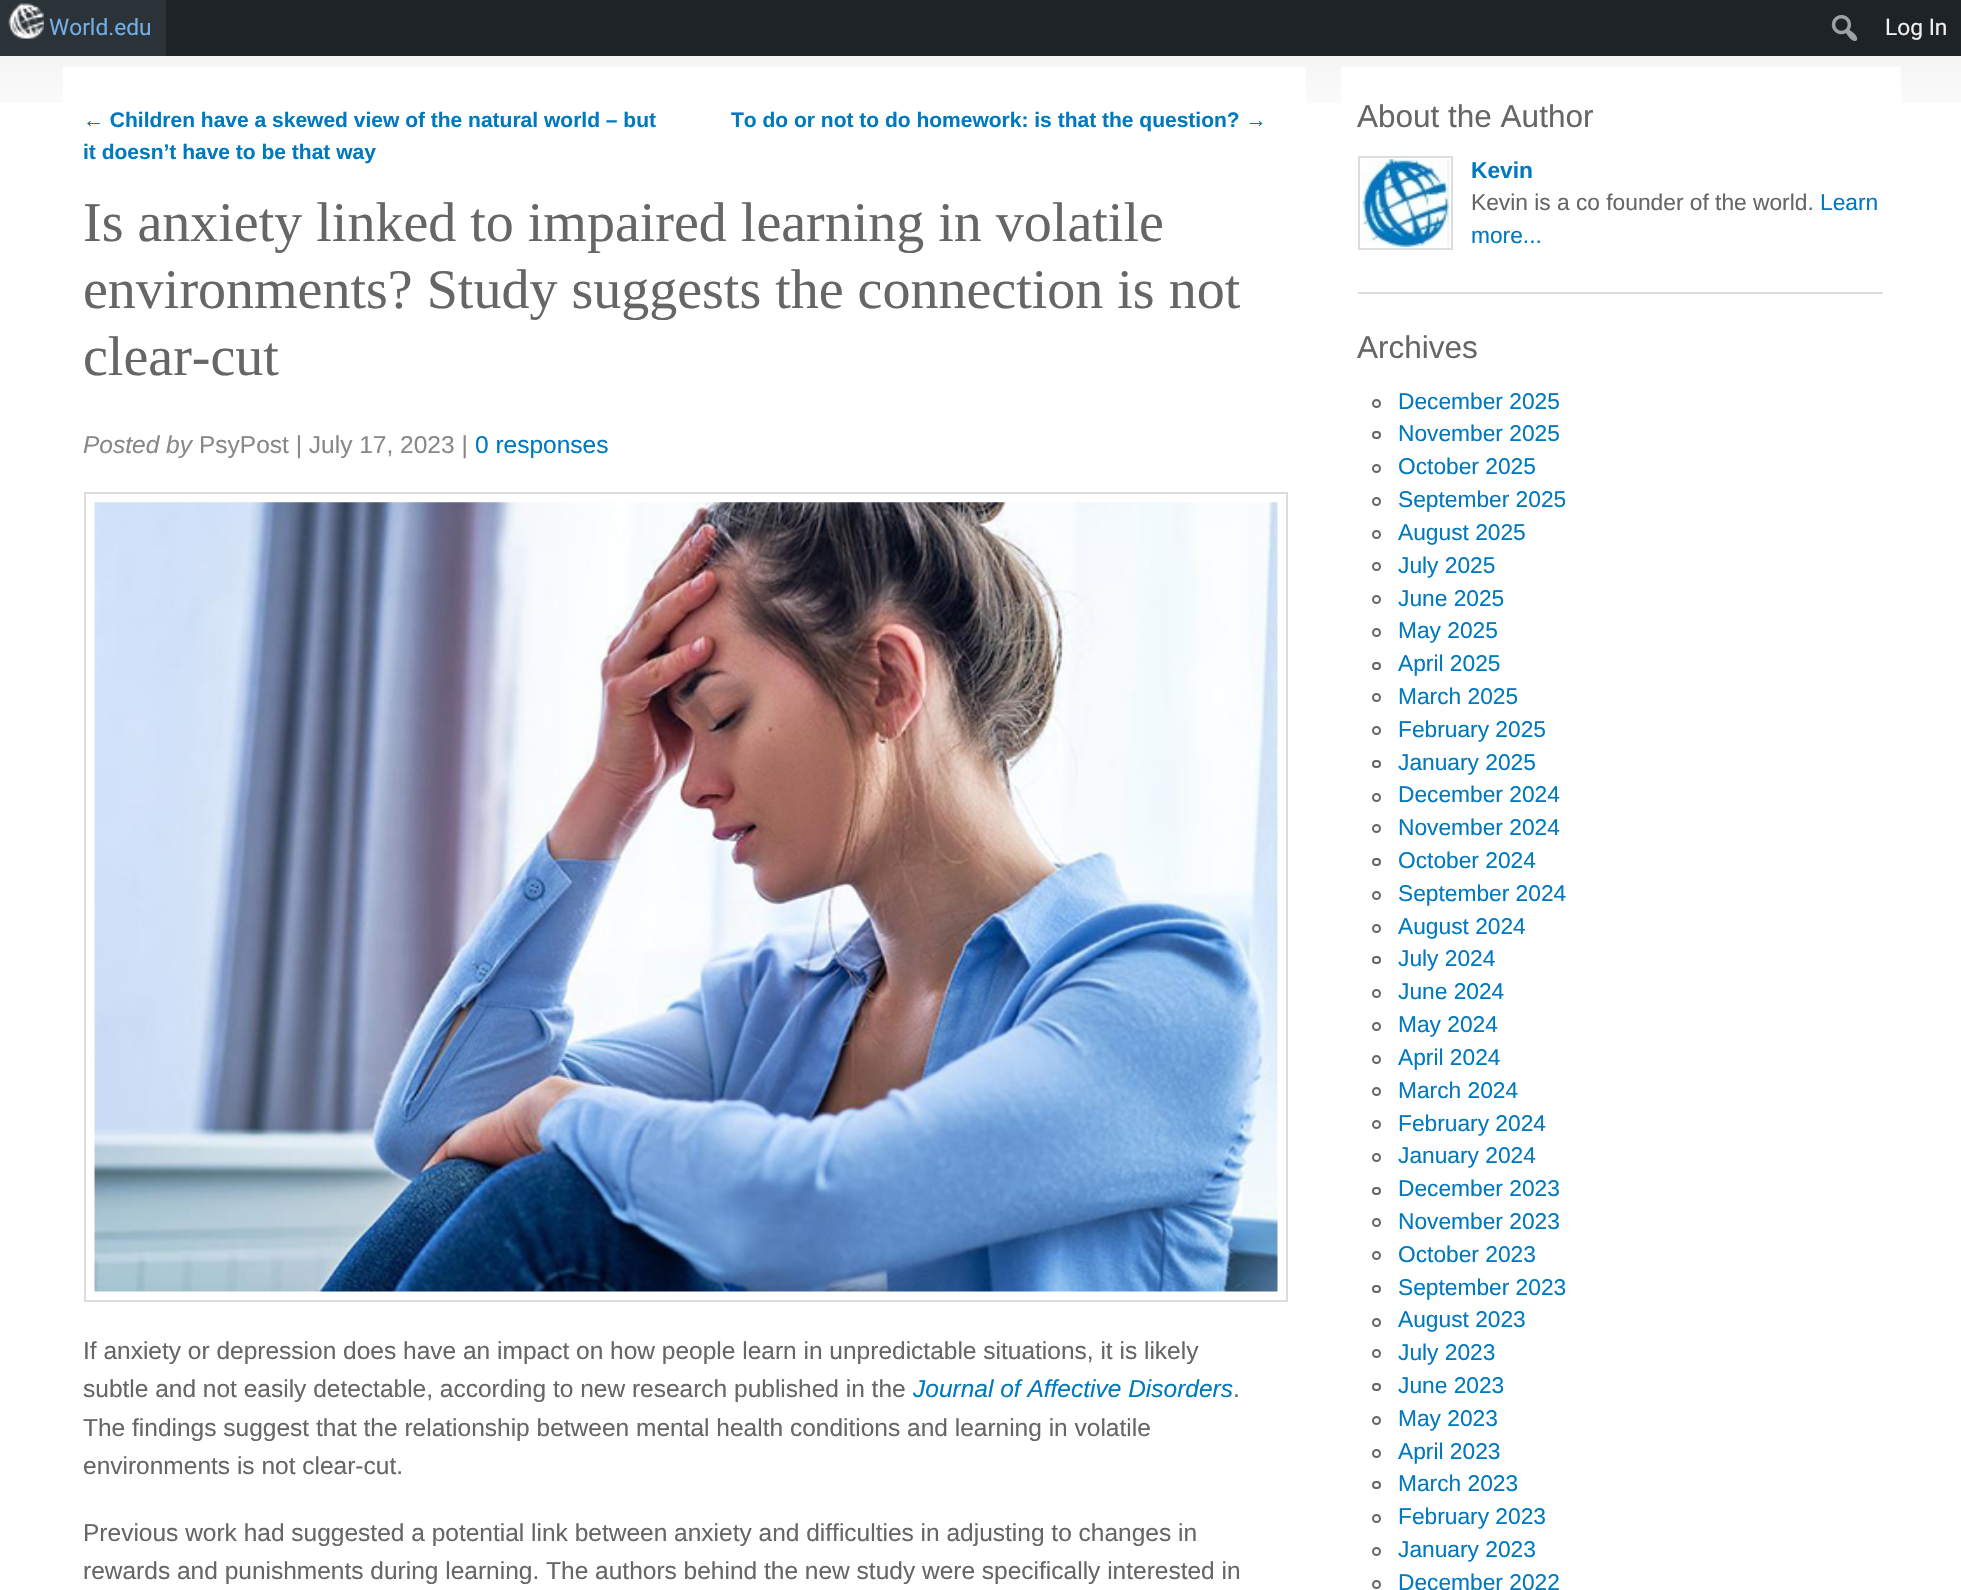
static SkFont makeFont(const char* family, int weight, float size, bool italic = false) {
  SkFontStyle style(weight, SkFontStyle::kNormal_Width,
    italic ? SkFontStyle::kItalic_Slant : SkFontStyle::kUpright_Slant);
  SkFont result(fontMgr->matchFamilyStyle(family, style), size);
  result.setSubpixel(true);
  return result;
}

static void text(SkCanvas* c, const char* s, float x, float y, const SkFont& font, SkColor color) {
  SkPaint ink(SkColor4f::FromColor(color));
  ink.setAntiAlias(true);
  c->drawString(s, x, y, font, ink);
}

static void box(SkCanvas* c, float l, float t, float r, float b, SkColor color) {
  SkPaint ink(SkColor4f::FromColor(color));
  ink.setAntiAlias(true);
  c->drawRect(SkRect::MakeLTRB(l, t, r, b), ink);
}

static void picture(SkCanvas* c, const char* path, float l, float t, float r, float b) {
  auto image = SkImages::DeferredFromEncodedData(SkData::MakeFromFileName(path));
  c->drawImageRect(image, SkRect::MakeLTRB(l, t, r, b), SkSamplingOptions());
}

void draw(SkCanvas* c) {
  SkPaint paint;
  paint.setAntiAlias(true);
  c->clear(0xffffffff);
  box(c, 166, 0, 1961, 56, 0xff1d2327);
  picture(c, "img_01.png", 1831, 15, 1858, 41);
  box(c, 0, 0, 166, 56, 0xff2c3338);
  picture(c, "img_02.png", 8, 3, 44, 39);
  SkFont face1 = makeFont("Roboto", 400, 22.75f);
  text(c, "World.edu", 49, 35, face1, 0xff72aee6);
  text(c, "Log In", 1885, 35, face1, 0xfff0f0f1);
  picture(c, "img_03.png", 0, 56, 1961, 103);
  box(c, 63, 67, 1306, 103, 0xffffffff);
  SkFont face2 = makeFont("Liberation Sans", 700, 21);
  text(c, "← Children have a skewed view of the natural world – but", 83, 127, face2, 0xff0079bf);
  text(c, "it doesn’t have to be that way", 83, 159, face2, 0xff0079bf);
  text(c, "To do or not to do homework: is that the question? →", 731, 127, face2, 0xff0079bf);
  SkFont face3 = makeFont("Liberation Serif", 400, 56);
  text(c, "Is anxiety linked to impaired learning in volatile", 83, 241, face3, 0xff666666);
  text(c, "environments? Study suggests the connection is not", 83, 308, face3, 0xff666666);
  text(c, "clear-cut", 83, 375, face3, 0xff666666);
  SkFont face4 = makeFont("Liberation Sans", 400, 24.5f, true);
  text(c, "Posted by", 83, 453, face4, 0xff888888);
  SkFont face5 = makeFont("Liberation Sans", 400, 24.5f);
  text(c, "PsyPost | July 17, 2023 |", 199, 453, face5, 0xff888888);
  text(c, "0 responses", 475, 453, face5, 0xff0079bf);
  paint.setStyle(SkPaint::kStroke_Style);
  paint.setStrokeWidth(2);
  paint.setColor(0xffdcdcdc);
  c->drawRect(SkRect::MakeLTRB(85, 493, 1287, 1301), paint);
  picture(c, "img_04.png", 94, 502, 1278, 1292);
  text(c, "If anxiety or depression does have an impact on how people learn in unpredictable situations, it is likely", 83, 1359, face5, 0xff666666);
  text(c, "subtle and not easily detectable, according to new research published in the", 83, 1397, face5, 0xff666666);
  text(c, "Journal of Affective Disorders", 913, 1397, face4, 0xff0079bf);
  text(c, ".", 1233, 1397, face5, 0xff666666);
  text(c, "The findings suggest that the relationship between mental health conditions and learning in volatile", 83, 1436, face5, 0xff666666);
  text(c, "environments is not clear-cut.", 83, 1474, face5, 0xff666666);
  text(c, "Previous work had suggested a potential link between anxiety and difficulties in adjusting to changes in", 83, 1541, face5, 0xff666666);
  text(c, "rewards and punishments during learning. The authors behind the new study were specifically interested in", 83, 1579, face5, 0xff666666);
  box(c, 1341, 67, 1901, 103, 0xffffffff);
  box(c, 1358, 292, 1883, 294, 0xffdcdcdc);
  SkFont face6 = makeFont("Liberation Sans", 400, 31.5f);
  text(c, "About the Author", 1357, 127, face6, 0xff666666);
  c->drawRect(SkRect::MakeLTRB(1359, 157, 1452, 249), paint);
  picture(c, "img_05.png", 1361, 159, 1449, 247);
  SkFont face7 = makeFont("Liberation Sans", 700, 22.75f);
  text(c, "Kevin", 1471, 178, face7, 0xff0079bf);
  SkFont face8 = makeFont("Liberation Sans", 400, 22.75f);
  text(c, "Kevin is a co founder of the world.", 1471, 210, face8, 0xff666666);
  text(c, "Learn", 1820, 210, face8, 0xff0079bf);
  text(c, "more...", 1471, 243, face8, 0xff0079bf);
  text(c, "Archives", 1357, 358, face6, 0xff666666);
  paint.setColor(0xff666666);
  c->drawCircle(1376.5f, 403.5f, 3.5f, paint);
  text(c, "December 2025", 1398, 409, face8, 0xff0079bf);
  c->drawRoundRect(SkRect::MakeLTRB(1373, 432, 1380, 438), 3, 3, paint);
  text(c, "November 2025", 1398, 441, face8, 0xff0079bf);
  c->drawCircle(1376.5f, 468.5f, 3.5f, paint);
  text(c, "October 2025", 1398, 474, face8, 0xff0079bf);
  c->drawCircle(1376.5f, 501.5f, 3.5f, paint);
  text(c, "September 2025", 1398, 507, face8, 0xff0079bf);
  c->drawCircle(1376.5f, 534.5f, 3.5f, paint);
  text(c, "August 2025", 1398, 540, face8, 0xff0079bf);
  c->drawCircle(1376.5f, 566.5f, 3.5f, paint);
  text(c, "July 2025", 1398, 573, face8, 0xff0079bf);
  c->drawCircle(1376.5f, 599.5f, 3.5f, paint);
  text(c, "June 2025", 1398, 606, face8, 0xff0079bf);
  c->drawCircle(1376.5f, 632.5f, 3.5f, paint);
  text(c, "May 2025", 1398, 638, face8, 0xff0079bf);
  c->drawRoundRect(SkRect::MakeLTRB(1373, 663, 1380, 669), 3, 3, paint);
  text(c, "April 2025", 1398, 671, face8, 0xff0079bf);
  c->drawCircle(1376.5f, 697.5f, 3.5f, paint);
  text(c, "March 2025", 1398, 704, face8, 0xff0079bf);
  c->drawCircle(1376.5f, 730.5f, 3.5f, paint);
  text(c, "February 2025", 1398, 737, face8, 0xff0079bf);
  c->drawRoundRect(SkRect::MakeLTRB(1373, 761, 1380, 767), 3, 3, paint);
  text(c, "January 2025", 1398, 770, face8, 0xff0079bf);
  c->drawCircle(1376.5f, 797.5f, 3.5f, paint);
  text(c, "December 2024", 1398, 802, face8, 0xff0079bf);
  c->drawCircle(1376.5f, 828.5f, 3.5f, paint);
  text(c, "November 2024", 1398, 835, face8, 0xff0079bf);
  c->drawRoundRect(SkRect::MakeLTRB(1373, 859, 1380, 865), 3, 3, paint);
  text(c, "October 2024", 1398, 868, face8, 0xff0079bf);
  c->drawCircle(1376.5f, 895.5f, 3.5f, paint);
  text(c, "September 2024", 1398, 901, face8, 0xff0079bf);
  c->drawCircle(1376.5f, 928.5f, 3.5f, paint);
  text(c, "August 2024", 1398, 934, face8, 0xff0079bf);
  c->drawRoundRect(SkRect::MakeLTRB(1373, 957, 1380, 963), 3, 3, paint);
  text(c, "July 2024", 1398, 966, face8, 0xff0079bf);
  c->drawCircle(1376.5f, 993.5f, 3.5f, paint);
  text(c, "June 2024", 1398, 999, face8, 0xff0079bf);
  c->drawCircle(1376.5f, 1026.5f, 3.5f, paint);
  text(c, "May 2024", 1398, 1032, face8, 0xff0079bf);
  c->drawCircle(1376.5f, 1059.5f, 3.5f, paint);
  text(c, "April 2024", 1398, 1065, face8, 0xff0079bf);
  c->drawCircle(1376.5f, 1091.5f, 3.5f, paint);
  text(c, "March 2024", 1398, 1098, face8, 0xff0079bf);
  c->drawCircle(1376.5f, 1124.5f, 3.5f, paint);
  text(c, "February 2024", 1398, 1131, face8, 0xff0079bf);
  c->drawCircle(1376.5f, 1157.5f, 3.5f, paint);
  text(c, "January 2024", 1398, 1163, face8, 0xff0079bf);
  c->drawRoundRect(SkRect::MakeLTRB(1373, 1188, 1380, 1194), 3, 3, paint);
  text(c, "December 2023", 1398, 1196, face8, 0xff0079bf);
  c->drawCircle(1376.5f, 1222.5f, 3.5f, paint);
  text(c, "November 2023", 1398, 1229, face8, 0xff0079bf);
  c->drawCircle(1376.5f, 1255.5f, 3.5f, paint);
  text(c, "October 2023", 1398, 1262, face8, 0xff0079bf);
  c->drawRoundRect(SkRect::MakeLTRB(1373, 1286, 1380, 1292), 3, 3, paint);
  text(c, "September 2023", 1398, 1295, face8, 0xff0079bf);
  c->drawCircle(1376.5f, 1322.5f, 3.5f, paint);
  text(c, "August 2023", 1398, 1327, face8, 0xff0079bf);
  c->drawCircle(1376.5f, 1353.5f, 3.5f, paint);
  text(c, "July 2023", 1398, 1360, face8, 0xff0079bf);
  c->drawRoundRect(SkRect::MakeLTRB(1373, 1384, 1380, 1390), 3, 3, paint);
  text(c, "June 2023", 1398, 1393, face8, 0xff0079bf);
  c->drawCircle(1376.5f, 1420.5f, 3.5f, paint);
  text(c, "May 2023", 1398, 1426, face8, 0xff0079bf);
  c->drawCircle(1376.5f, 1453.5f, 3.5f, paint);
  text(c, "April 2023", 1398, 1459, face8, 0xff0079bf);
  c->drawRoundRect(SkRect::MakeLTRB(1373, 1482, 1380, 1488), 3, 3, paint);
  text(c, "March 2023", 1398, 1491, face8, 0xff0079bf);
  c->drawCircle(1376.5f, 1518.5f, 3.5f, paint);
  text(c, "February 2023", 1398, 1524, face8, 0xff0079bf);
  c->drawCircle(1376.5f, 1551.5f, 3.5f, paint);
  text(c, "January 2023", 1398, 1557, face8, 0xff0079bf);
  c->drawCircle(1376.5f, 1584.5f, 3.5f, paint);
  text(c, "December 2022", 1398, 1590, face8, 0xff0079bf);
}
